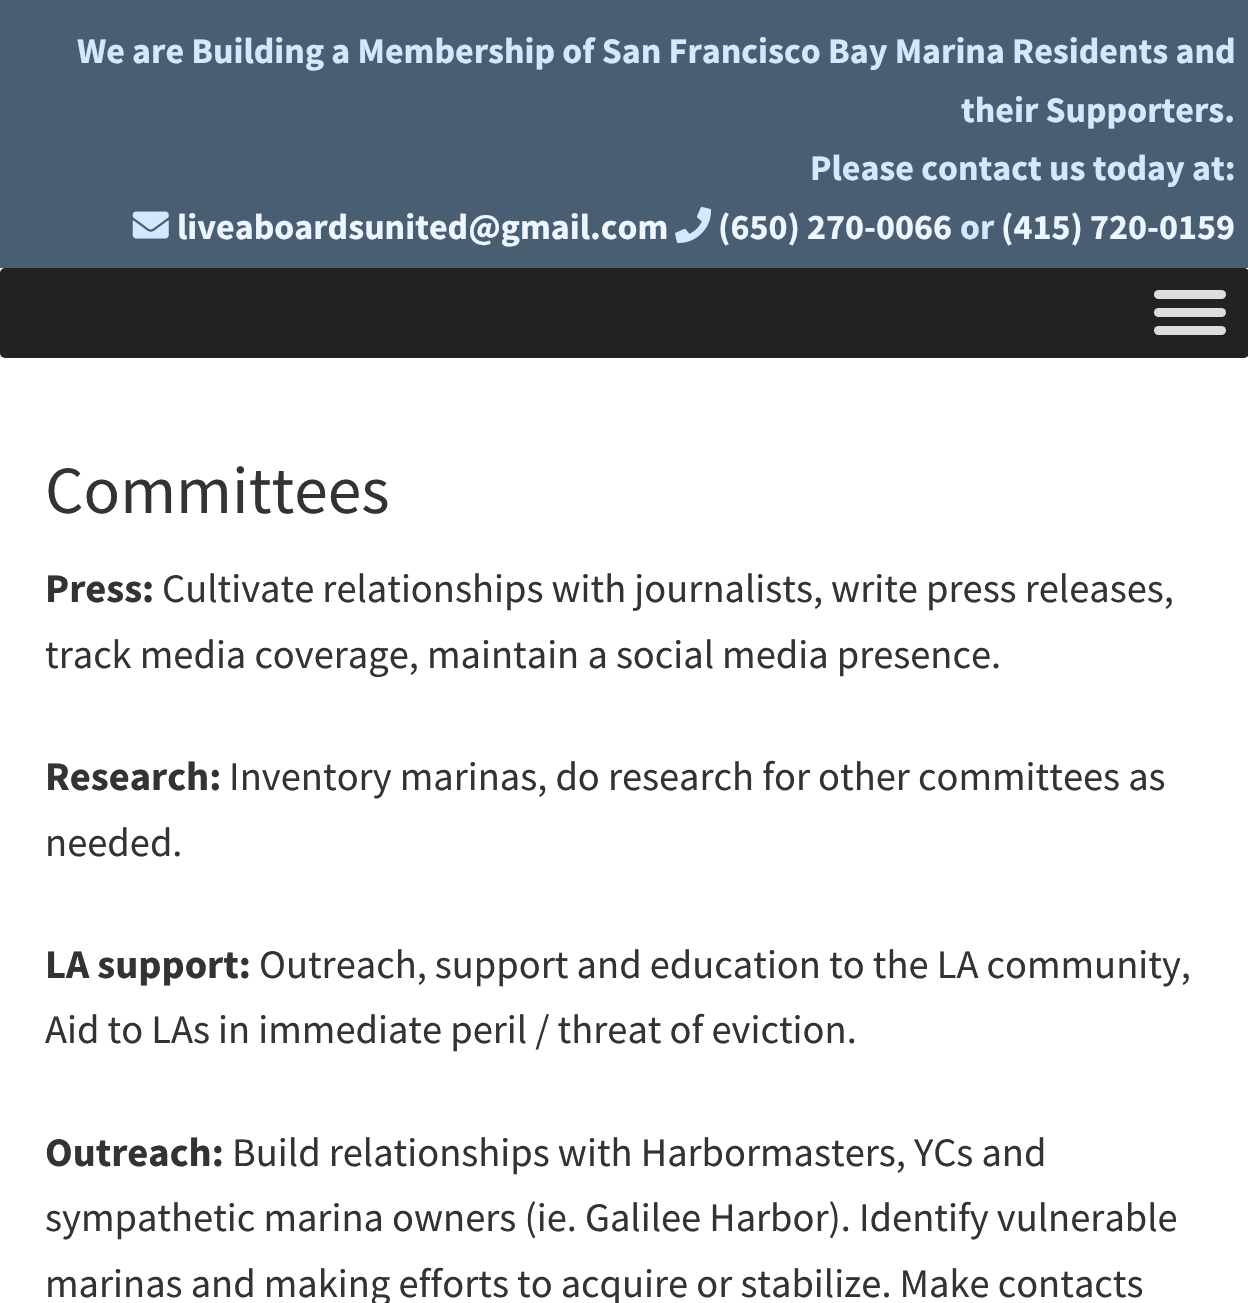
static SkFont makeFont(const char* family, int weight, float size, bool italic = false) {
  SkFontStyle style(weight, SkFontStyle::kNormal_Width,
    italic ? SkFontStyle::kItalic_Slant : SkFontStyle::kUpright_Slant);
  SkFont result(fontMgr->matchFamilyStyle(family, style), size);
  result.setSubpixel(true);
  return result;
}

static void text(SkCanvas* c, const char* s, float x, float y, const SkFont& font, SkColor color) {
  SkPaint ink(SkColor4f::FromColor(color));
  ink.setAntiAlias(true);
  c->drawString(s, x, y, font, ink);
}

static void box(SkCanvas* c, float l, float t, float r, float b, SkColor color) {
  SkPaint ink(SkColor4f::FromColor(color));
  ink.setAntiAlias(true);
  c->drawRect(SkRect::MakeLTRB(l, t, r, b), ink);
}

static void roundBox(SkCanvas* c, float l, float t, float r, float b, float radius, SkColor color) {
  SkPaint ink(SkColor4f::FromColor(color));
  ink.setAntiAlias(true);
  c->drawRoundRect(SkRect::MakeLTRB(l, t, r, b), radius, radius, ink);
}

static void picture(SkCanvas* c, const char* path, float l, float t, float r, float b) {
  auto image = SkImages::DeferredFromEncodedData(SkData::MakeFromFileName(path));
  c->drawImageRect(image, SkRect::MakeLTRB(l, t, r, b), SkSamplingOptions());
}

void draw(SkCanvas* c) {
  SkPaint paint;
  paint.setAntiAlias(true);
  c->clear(0xffffffff);
  box(c, 0, 0, 1248, 268, 0xff495e73);
  SkFont face1 = makeFont("Source Sans Pro", 700, 36);
  text(c, "We are Building a Membership of San Francisco Bay Marina Residents and", 77, 63, face1, 0xffd1e8ff);
  text(c, "their Supporters.", 961, 122, face1, 0xffd1e8ff);
  text(c, "Please contact us today at:", 810, 180, face1, 0xffd1e8ff);
  picture(c, "img_01.png", 132, 211, 169, 239);
  text(c, "liveaboardsunited@gmail.com", 177, 239, face1, 0xffedf5ff);
  picture(c, "img_02.png", 675, 207, 712, 243);
  text(c, "(650) 270-0066", 718, 239, face1, 0xffedf5ff);
  text(c, "or", 960, 239, face1, 0xffd1e8ff);
  text(c, "(415) 720-0159", 1001, 239, face1, 0xffedf5ff);
  box(c, 0, 268, 1248, 358, 0xfffafafa);
  roundBox(c, 0, 268, 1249, 358, 5, 0xff222222);
  roundBox(c, 1154, 290, 1226, 299, 4.5f, 0xffdddddd);
  roundBox(c, 1154, 308, 1226, 317, 4.5f, 0xffdddddd);
  roundBox(c, 1154, 326, 1226, 335, 4.5f, 0xffdddddd);
  SkFont face2 = makeFont("Source Sans Pro", 400, 67.5f);
  text(c, "Committees", 45, 513, face2, 0xff333333);
  SkFont face3 = makeFont("Source Sans Pro", 700, 40.5f);
  text(c, "Press:", 45, 602, face3, 0xff333333);
  SkFont face4 = makeFont("Source Sans Pro", 400, 40.5f);
  text(c, "Cultivate relationships with journalists, write press releases,", 162, 602, face4, 0xff333333);
  text(c, "track media coverage, maintain a social media presence.", 45, 668, face4, 0xff333333);
  text(c, "Research:", 45, 790, face3, 0xff333333);
  text(c, "Inventory marinas, do research for other committees as", 229, 790, face4, 0xff333333);
  text(c, "needed.", 45, 856, face4, 0xff333333);
  text(c, "LA support:", 45, 978, face3, 0xff333333);
  text(c, "Outreach, support and education to the LA community,", 259, 978, face4, 0xff333333);
  text(c, "Aid to LAs in immediate peril / threat of eviction.", 45, 1043, face4, 0xff333333);
  text(c, "Outreach:", 45, 1166, face3, 0xff333333);
  text(c, "Build relationships with Harbormasters, YCs and", 232, 1166, face4, 0xff333333);
  text(c, "sympathetic marina owners (ie. Galilee Harbor). Identify vulnerable", 45, 1231, face4, 0xff333333);
  text(c, "marinas and making efforts to acquire or stabilize. Make contacts", 45, 1297, face4, 0xff333333);
}
